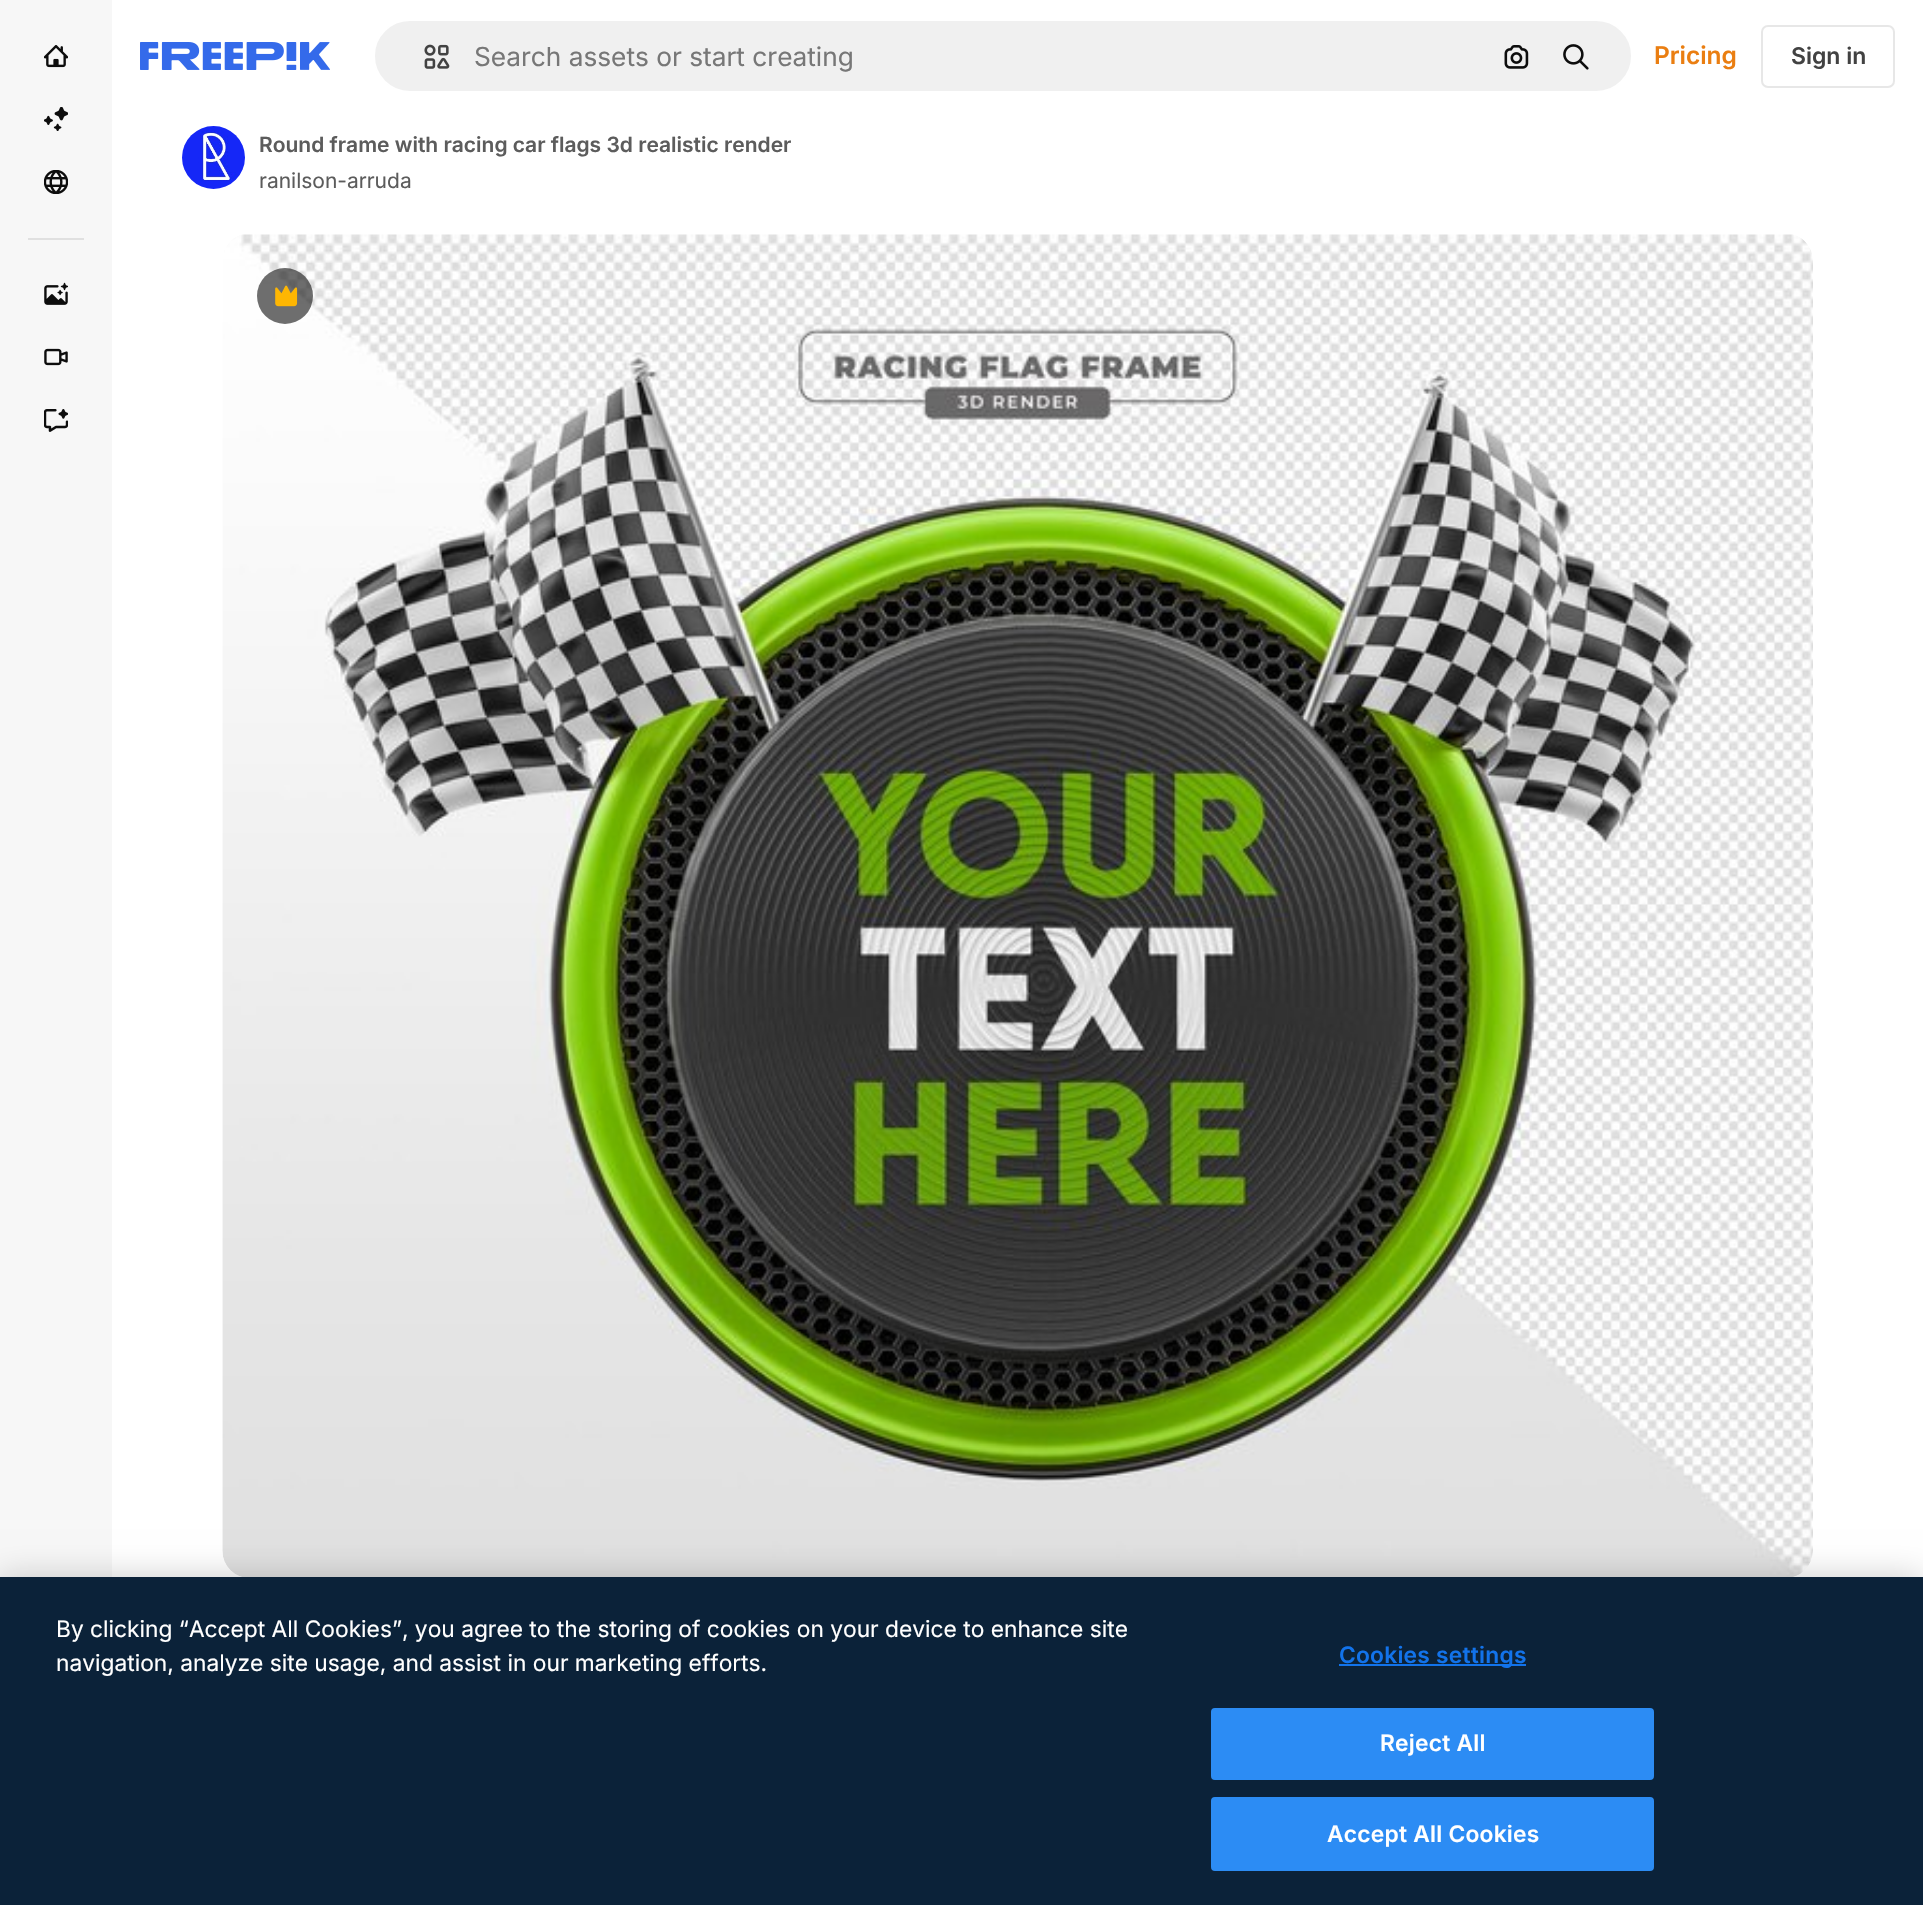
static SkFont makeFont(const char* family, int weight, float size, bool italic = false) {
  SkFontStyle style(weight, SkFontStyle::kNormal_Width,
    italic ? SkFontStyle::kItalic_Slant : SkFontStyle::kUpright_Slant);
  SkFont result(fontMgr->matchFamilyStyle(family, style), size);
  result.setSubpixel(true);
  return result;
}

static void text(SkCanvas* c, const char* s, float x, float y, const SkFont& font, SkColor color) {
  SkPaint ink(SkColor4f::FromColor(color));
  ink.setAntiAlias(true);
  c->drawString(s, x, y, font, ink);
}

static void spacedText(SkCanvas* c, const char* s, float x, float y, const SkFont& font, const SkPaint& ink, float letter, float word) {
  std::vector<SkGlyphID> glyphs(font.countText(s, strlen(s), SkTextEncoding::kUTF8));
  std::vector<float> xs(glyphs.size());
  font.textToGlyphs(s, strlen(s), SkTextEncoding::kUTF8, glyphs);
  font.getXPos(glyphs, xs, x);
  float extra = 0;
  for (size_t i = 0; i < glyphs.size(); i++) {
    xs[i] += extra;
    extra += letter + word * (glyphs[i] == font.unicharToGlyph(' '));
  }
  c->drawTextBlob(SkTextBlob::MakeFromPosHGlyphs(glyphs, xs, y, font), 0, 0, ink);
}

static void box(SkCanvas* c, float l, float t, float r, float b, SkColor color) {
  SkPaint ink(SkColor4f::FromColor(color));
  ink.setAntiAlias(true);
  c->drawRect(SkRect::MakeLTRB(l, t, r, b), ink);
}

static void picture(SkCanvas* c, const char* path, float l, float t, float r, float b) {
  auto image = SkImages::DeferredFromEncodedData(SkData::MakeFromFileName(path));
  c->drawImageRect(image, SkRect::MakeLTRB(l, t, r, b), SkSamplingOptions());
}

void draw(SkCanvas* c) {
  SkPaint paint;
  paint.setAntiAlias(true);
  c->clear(0xffffffff);
  box(c, 0, 0, 112, 1577, 0xfff7f7f7);
  picture(c, "img_01.png", 44, 45, 68, 68);
  picture(c, "img_02.png", 44, 107, 68, 131);
  picture(c, "img_03.png", 44, 170, 68, 194);
  box(c, 28, 238, 84, 240, 0xffe0e0e0);
  picture(c, "img_04.png", 44, 282, 68, 305);
  picture(c, "img_05.png", 44, 348, 68, 366);
  picture(c, "img_06.png", 44, 409, 68, 432);
  picture(c, "img_07.png", 140, 42, 330, 70);
  paint.setColor(0xfff0f0f0);
  c->drawRoundRect(SkRect::MakeLTRB(374, 20, 1632, 92), 36, 36, paint);
  paint.setStyle(SkPaint::kStroke_Style);
  paint.setStrokeWidth(2);
  paint.setColor(0xffffffff);
  c->drawRoundRect(SkRect::MakeLTRB(374, 20, 1632, 92), 36, 36, paint);
  picture(c, "img_08.png", 424, 44, 450, 69);
  SkFont face1 = makeFont("Inter", 400, 26.25f);
  text(c, "Search assets or start creating", 474, 66, face1, 0xff777777);
  picture(c, "img_09.png", 1504, 45, 1529, 69);
  picture(c, "img_10.png", 1563, 44, 1589, 70);
  SkFont face2 = makeFont("Inter", 600, 24.5f);
  text(c, "Pricing", 1654, 64, face2, 0xffea7e11);
  paint.setColor(0xffe7e7e7);
  c->drawRoundRect(SkRect::MakeLTRB(1762, 26, 1894, 87), 6, 6, paint);
  SkFont face3 = makeFont("Inter", 600, 23);
  text(c, "Sign in", 1791, 64, face3, 0xff424242);
  picture(c, "img_11.png", 182, 126, 245, 189);
  SkFont face4 = makeFont("Inter", 600, 21);
  text(c, "Round frame with racing car flags 3d realistic render", 259, 152, face4, 0xff5c5c5c);
  SkFont face5 = makeFont("Inter", 400, 21);
  text(c, "ranilson-arruda", 259, 188, face5, 0xff5c5c5c);
  picture(c, "img_12.png", 222, 234, 1813, 1577);
  paint.setStyle(SkPaint::kFill_Style);
  paint.setColor(0x990d0d0d);
  c->drawCircle(285, 296, 28, paint);
  picture(c, "img_13.png", 275, 285, 298, 307);
  paint.setColor(0x33000000);
  paint.setMaskFilter(SkMaskFilter::MakeBlur(kNormal_SkBlurStyle, 16));
  c->drawRect(SkRect::MakeLTRB(0, 1577, 1923, 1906), paint);
  paint.setMaskFilter(nullptr);
  box(c, 0, 1577, 1923, 1905, 0xff0b2239);
  SkFont face6 = makeFont("Inter", 400, 22.75f);
  text(c, "By clicking “Accept All Cookies”, you agree to the storing of cookies on your device to enhance site", 56, 1637, face6, 0xffffffff);
  text(c, "navigation, analyze site usage, and assist in our marketing efforts.", 56, 1671, face6, 0xffffffff);
  box(c, 1339, 1664, 1526, 1666, 0xff1273eb);
  SkFont face7 = makeFont("Inter", 600, 22.75f);
  paint.setColor(0xff1273eb);
  spacedText(c, "Cookies settings", 1339, 1663, face7, paint, 0.25f, 0);
  paint.setColor(0xff2c8cf4);
  c->drawRoundRect(SkRect::MakeLTRB(1212, 1709, 1653, 1779), 3, 3, paint);
  paint.setStyle(SkPaint::kStroke_Style);
  c->drawRoundRect(SkRect::MakeLTRB(1212, 1709, 1653, 1779), 3, 3, paint);
  paint.setStyle(SkPaint::kFill_Style);
  paint.setColor(0xffffffff);
  spacedText(c, "Reject All", 1380, 1751, face7, paint, 0.25f, 0);
  paint.setColor(0xff2c8cf4);
  c->drawRoundRect(SkRect::MakeLTRB(1212, 1798, 1653, 1870), 3, 3, paint);
  paint.setStyle(SkPaint::kStroke_Style);
  c->drawRoundRect(SkRect::MakeLTRB(1212, 1798, 1653, 1870), 3, 3, paint);
  paint.setStyle(SkPaint::kFill_Style);
  paint.setColor(0xffffffff);
  spacedText(c, "Accept All Cookies", 1327, 1842, face7, paint, 0.25f, 0);
}
